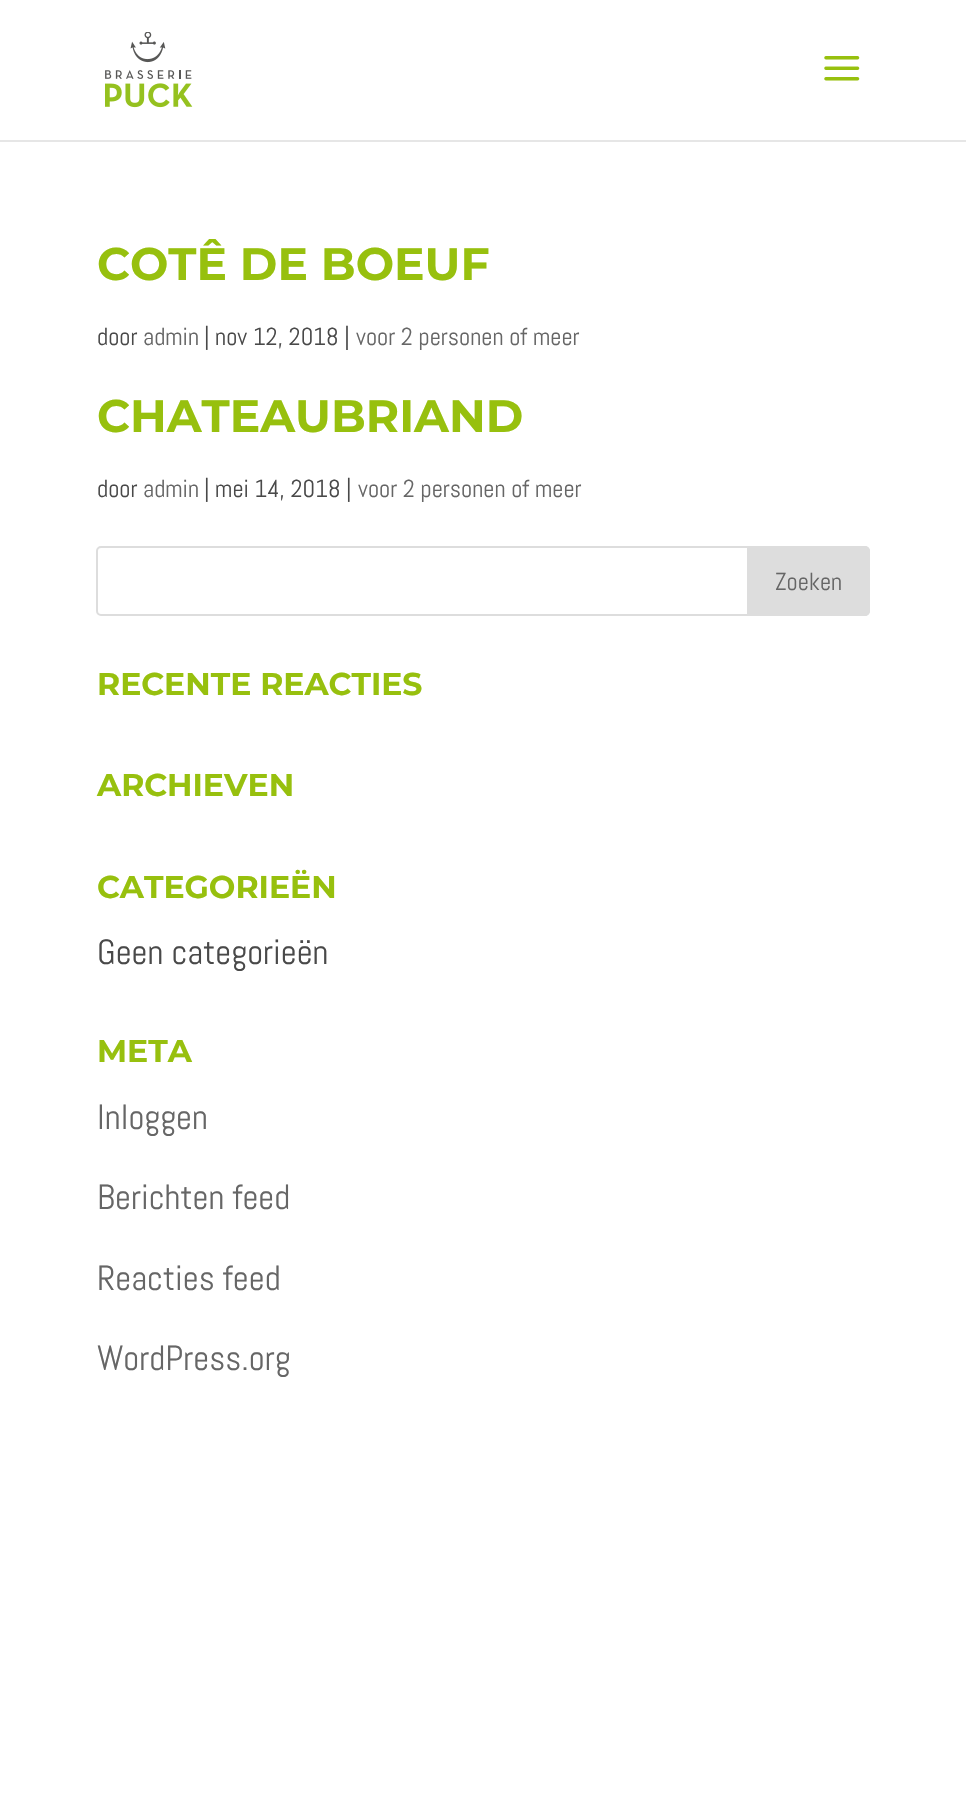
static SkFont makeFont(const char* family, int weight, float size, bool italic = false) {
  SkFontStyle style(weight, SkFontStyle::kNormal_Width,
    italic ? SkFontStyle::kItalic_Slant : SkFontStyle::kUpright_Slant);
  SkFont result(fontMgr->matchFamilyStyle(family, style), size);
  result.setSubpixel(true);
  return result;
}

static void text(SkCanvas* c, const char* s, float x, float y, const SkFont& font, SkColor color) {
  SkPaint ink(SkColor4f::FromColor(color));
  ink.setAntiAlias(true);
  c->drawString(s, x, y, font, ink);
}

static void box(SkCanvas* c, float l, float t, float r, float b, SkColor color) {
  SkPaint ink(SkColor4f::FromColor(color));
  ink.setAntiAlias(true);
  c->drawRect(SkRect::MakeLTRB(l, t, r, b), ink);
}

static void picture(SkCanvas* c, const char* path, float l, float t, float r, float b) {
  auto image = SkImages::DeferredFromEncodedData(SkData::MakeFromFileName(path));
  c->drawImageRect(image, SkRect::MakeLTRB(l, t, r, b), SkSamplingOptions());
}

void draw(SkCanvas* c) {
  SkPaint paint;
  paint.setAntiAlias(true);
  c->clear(0xffffffff);
  box(c, 0, 140, 966, 142, 0xffe6e6e6);
  picture(c, "img_01.png", 105, 32, 193, 108);
  picture(c, "img_02.png", 824, 56, 860, 81);
  SkFont face1 = makeFont("Montserrat", 700, 45.5f);
  text(c, "COTÊ DE BOEUF", 97, 280, face1, 0xff97c00e);
  SkFont face2 = makeFont("Abel", 400, 24.5f);
  text(c, "door", 97, 345, face2, 0xff494949);
  text(c, "admin", 143, 345, face2, 0xff666666);
  text(c, "| nov 12, 2018 |", 204, 345, face2, 0xff494949);
  text(c, "voor 2 personen of meer", 356, 345, face2, 0xff666666);
  text(c, "CHATEAUBRIAND", 97, 432, face1, 0xff97c00e);
  text(c, "door", 97, 497, face2, 0xff494949);
  text(c, "admin", 143, 497, face2, 0xff666666);
  text(c, "| mei 14, 2018 |", 204, 497, face2, 0xff494949);
  text(c, "voor 2 personen of meer", 358, 497, face2, 0xff666666);
  paint.setStyle(SkPaint::kStroke_Style);
  paint.setStrokeWidth(2);
  paint.setColor(0xffdddddd);
  c->drawRoundRect(SkRect::MakeLTRB(97, 547, 869, 615), 4, 4, paint);
  paint.setStyle(SkPaint::kFill_Style);
  c->drawPath(SkPathBuilder().moveTo(748, 547).lineTo(865, 547).cubicTo(867, 547, 869, 549, 869, 551).lineTo(869, 611).cubicTo(869, 613, 867, 615, 865, 615).lineTo(748, 615).close().detach(), paint);
  paint.setStyle(SkPaint::kStroke_Style);
  c->drawPath(SkPathBuilder().moveTo(748, 547).lineTo(865, 547).cubicTo(867, 547, 869, 549, 869, 551).lineTo(869, 611).cubicTo(869, 613, 867, 615, 865, 615).lineTo(748, 615).close().detach(), paint);
  text(c, "Zoeken", 775, 590, face2, 0xff666666);
  SkFont face3 = makeFont("Montserrat", 700, 31.5f);
  text(c, "RECENTE REACTIES", 97, 695, face3, 0xff97c00e);
  text(c, "ARCHIEVEN", 97, 796, face3, 0xff97c00e);
  text(c, "CATEGORIEËN", 97, 898, face3, 0xff97c00e);
  SkFont face4 = makeFont("Abel", 400, 35);
  text(c, "Geen categorieën", 97, 964, face4, 0xff494949);
  text(c, "META", 97, 1062, face3, 0xff97c00e);
  text(c, "Inloggen", 97, 1129, face4, 0xff666666);
  text(c, "Berichten feed", 97, 1209, face4, 0xff666666);
  text(c, "Reacties feed", 97, 1290, face4, 0xff666666);
  text(c, "WordPress.org", 97, 1370, face4, 0xff666666);
}
